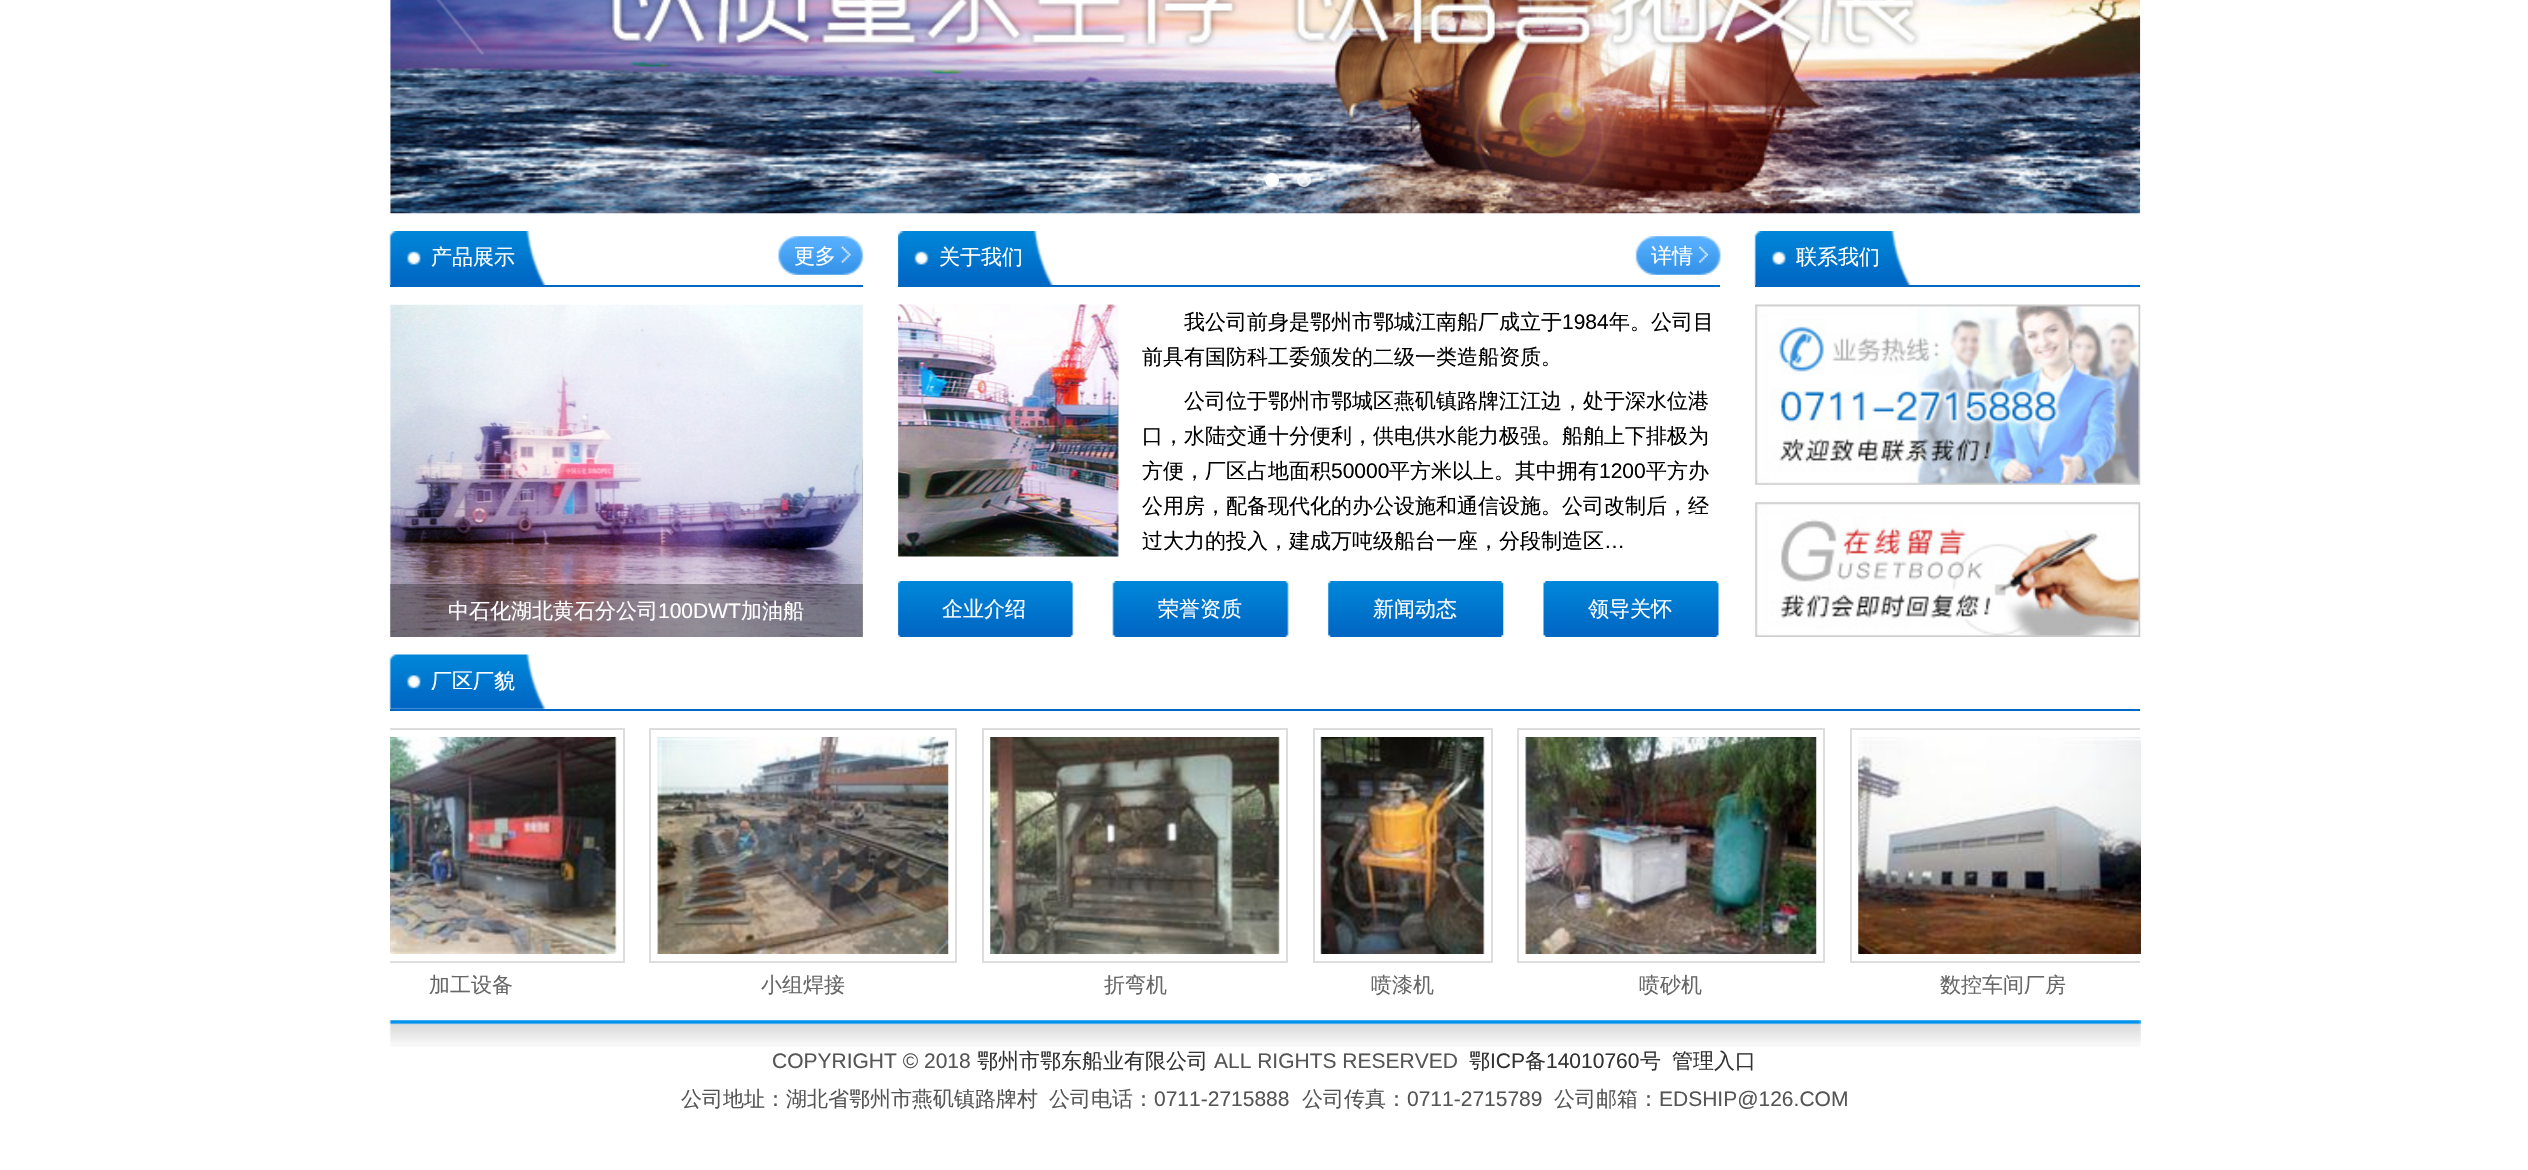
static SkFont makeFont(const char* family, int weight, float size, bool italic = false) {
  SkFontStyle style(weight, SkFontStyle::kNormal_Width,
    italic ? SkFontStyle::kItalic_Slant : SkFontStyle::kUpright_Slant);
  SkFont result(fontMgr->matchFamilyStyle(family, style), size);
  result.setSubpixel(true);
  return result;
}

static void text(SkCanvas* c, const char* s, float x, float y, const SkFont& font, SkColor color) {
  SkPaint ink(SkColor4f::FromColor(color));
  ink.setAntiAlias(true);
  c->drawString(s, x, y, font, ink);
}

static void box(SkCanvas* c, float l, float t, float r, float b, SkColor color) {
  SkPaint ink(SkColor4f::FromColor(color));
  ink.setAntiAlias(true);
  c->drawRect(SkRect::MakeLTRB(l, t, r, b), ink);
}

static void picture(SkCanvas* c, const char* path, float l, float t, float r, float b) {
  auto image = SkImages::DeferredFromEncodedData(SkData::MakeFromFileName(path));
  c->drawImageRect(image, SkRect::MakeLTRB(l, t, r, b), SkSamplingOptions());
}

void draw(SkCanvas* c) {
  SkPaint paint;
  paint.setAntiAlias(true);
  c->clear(0xffffffff);
  picture(c, "img_01.png", 390, 0, 2141, 214);
  picture(c, "img_02.png", 436, 0, 485, 55);
  picture(c, "img_03.png", 2047, 0, 2095, 55);
  paint.setColor(0xffffffff);
  c->drawCircle(1272, 180, 6, paint);
  paint.setStyle(SkPaint::kStroke_Style);
  paint.setStrokeWidth(2);
  c->drawCircle(1272, 180, 6, paint);
  paint.setStyle(SkPaint::kFill_Style);
  paint.setColor(0x80ffffff);
  c->drawCircle(1304, 180, 7, paint);
  paint.setStyle(SkPaint::kStroke_Style);
  c->drawCircle(1304, 180, 6, paint);
  box(c, 390, 285, 863, 287, 0xff0067c3);
  picture(c, "img_04.png", 389, 231, 546, 286);
  SkFont face1 = makeFont("WenQuanYi Zen Hei", 500, 21);
  text(c, "产品展示", 431, 264, face1, 0xffffffff);
  picture(c, "img_05.png", 778, 236, 864, 275);
  picture(c, "img_06.png", 841, 246, 851, 263);
  text(c, "更多", 794, 263, face1, 0xffffffff);
  box(c, 390, 305, 863, 637, 0xfff6f6f6);
  picture(c, "img_07.png", 389, 304, 863, 637);
  picture(c, "img_08.png", 862, 385, 863, 637);
  box(c, 390, 584, 863, 637, 0x4d000000);
  text(c, "中石化湖北黄石分公司", 448, 618, face1, 0xffffffff);
  SkFont face2 = makeFont("Liberation Sans", 400, 21);
  text(c, "100DWT", 658, 618, face2, 0xffffffff);
  text(c, "加油船", 741, 618, face1, 0xffffffff);
  box(c, 898, 285, 1720, 287, 0xff0067c3);
  picture(c, "img_09.png", 898, 231, 1054, 285);
  text(c, "关于我们", 939, 264, face1, 0xffffffff);
  picture(c, "img_10.png", 1635, 236, 1721, 275);
  picture(c, "img_11.png", 1699, 246, 1708, 263);
  text(c, "详情", 1651, 263, face1, 0xffffffff);
  picture(c, "img_12.png", 898, 304, 1119, 557);
  text(c, "我公司前身是鄂州市鄂城江南船厂成立于", 1184, 329, face1, 0xff000000);
  text(c, "1984", 1562, 329, face2, 0xff000000);
  text(c, "年。公司目", 1609, 329, face1, 0xff000000);
  text(c, "前具有国防科工委颁发的二级一类造船资质。", 1142, 364, face1, 0xff000000);
  text(c, "公司位于鄂州市鄂城区燕矶镇路牌江江边，处于深水位港", 1184, 408, face1, 0xff000000);
  text(c, "口，水陆交通十分便利，供电供水能力极强。船舶上下排极为", 1142, 443, face1, 0xff000000);
  text(c, "方便，厂区占地面积", 1142, 478, face1, 0xff000000);
  text(c, "50000", 1331, 478, face2, 0xff000000);
  text(c, "平方米以上。其中拥有", 1389, 478, face1, 0xff000000);
  text(c, "1200", 1599, 478, face2, 0xff000000);
  text(c, "平方办", 1646, 478, face1, 0xff000000);
  text(c, "公用房，配备现代化的办公设施和通信设施。公司改制后，经", 1142, 513, face1, 0xff000000);
  text(c, "过大力的投入，建成万吨级船台一座，分段制造区", 1142, 548, face1, 0xff000000);
  text(c, "…", 1604, 548, face2, 0xff000000);
  picture(c, "img_13.png", 898, 581, 1074, 637);
  text(c, "企业介绍", 942, 616, face1, 0xffffffff);
  picture(c, "img_14.png", 1112, 581, 1289, 637);
  text(c, "荣誉资质", 1158, 616, face1, 0xffffffff);
  picture(c, "img_15.png", 1328, 581, 1504, 637);
  text(c, "新闻动态", 1373, 616, face1, 0xffffffff);
  picture(c, "img_16.png", 1543, 581, 1719, 637);
  text(c, "领导关怀", 1588, 616, face1, 0xffffffff);
  box(c, 1755, 285, 2140, 287, 0xff0067c3);
  picture(c, "img_17.png", 1754, 231, 1911, 286);
  text(c, "联系我们", 1796, 264, face1, 0xffffffff);
  picture(c, "img_18.png", 1755, 304, 2141, 485);
  picture(c, "img_19.png", 1755, 502, 2141, 637);
  box(c, 390, 709, 2140, 711, 0xff0067c3);
  picture(c, "img_20.png", 389, 654, 546, 709);
  text(c, "厂区厂貌", 431, 688, face1, 0xffffffff);
  c->save();
  c->clipRect(SkRect::MakeLTRB(390, 728, 2140, 1003));
  paint.setColor(0xffdddddd);
  c->drawRect(SkRect::MakeLTRB(320, 729, 624, 962), paint);
  c->restore();
  picture(c, "img_21.png", 390, 737, 617, 954);
  text(c, "加工设备", 429, 992, face1, 0xff666666);
  c->drawRect(SkRect::MakeLTRB(650, 729, 956, 962), paint);
  picture(c, "img_22.png", 657, 737, 949, 954);
  text(c, "小组焊接", 761, 992, face1, 0xff666666);
  c->drawRect(SkRect::MakeLTRB(983, 729, 1287, 962), paint);
  picture(c, "img_23.png", 990, 737, 1280, 954);
  text(c, "折弯机", 1104, 992, face1, 0xff666666);
  c->drawRect(SkRect::MakeLTRB(1314, 729, 1492, 962), paint);
  picture(c, "img_24.png", 1320, 737, 1485, 954);
  text(c, "喷漆机", 1371, 992, face1, 0xff666666);
  c->drawRect(SkRect::MakeLTRB(1518, 729, 1824, 962), paint);
  picture(c, "img_25.png", 1525, 737, 1817, 954);
  text(c, "喷砂机", 1639, 992, face1, 0xff666666);
  c->save();
  c->clipRect(SkRect::MakeLTRB(390, 728, 2140, 1003));
  c->drawRect(SkRect::MakeLTRB(1851, 729, 2155, 962), paint);
  c->restore();
  picture(c, "img_26.png", 1858, 737, 2141, 954);
  text(c, "数控车间厂房", 1940, 992, face1, 0xff666666);
  picture(c, "img_27.png", 389, 1020, 2141, 1047);
  text(c, "COPYRIGHT © 2018", 772, 1068, face2, 0xff555555);
  text(c, "鄂州市鄂东船业有限公司", 977, 1068, face1, 0xff333333);
  text(c, "ALL RIGHTS RESERVED", 1214, 1068, face2, 0xff555555);
  text(c, "鄂", 1469, 1068, face1, 0xff333333);
  text(c, "ICP", 1490, 1068, face2, 0xff333333);
  text(c, "备", 1525, 1068, face1, 0xff333333);
  text(c, "14010760", 1546, 1068, face2, 0xff333333);
  text(c, "号", 1640, 1068, face1, 0xff333333);
  text(c, "管理入口", 1672, 1068, face1, 0xff333333);
  text(c, "公司地址：湖北省鄂州市燕矶镇路牌村", 681, 1106, face1, 0xff555555);
  text(c, "公司电话：", 1049, 1106, face1, 0xff555555);
  text(c, "0711-2715888", 1154, 1106, face2, 0xff555555);
  text(c, "公司传真：", 1302, 1106, face1, 0xff555555);
  text(c, "0711-2715789", 1407, 1106, face2, 0xff555555);
  text(c, "公司邮箱：", 1554, 1106, face1, 0xff555555);
  text(c, "EDSHIP@126.COM", 1659, 1106, face2, 0xff555555);
}
